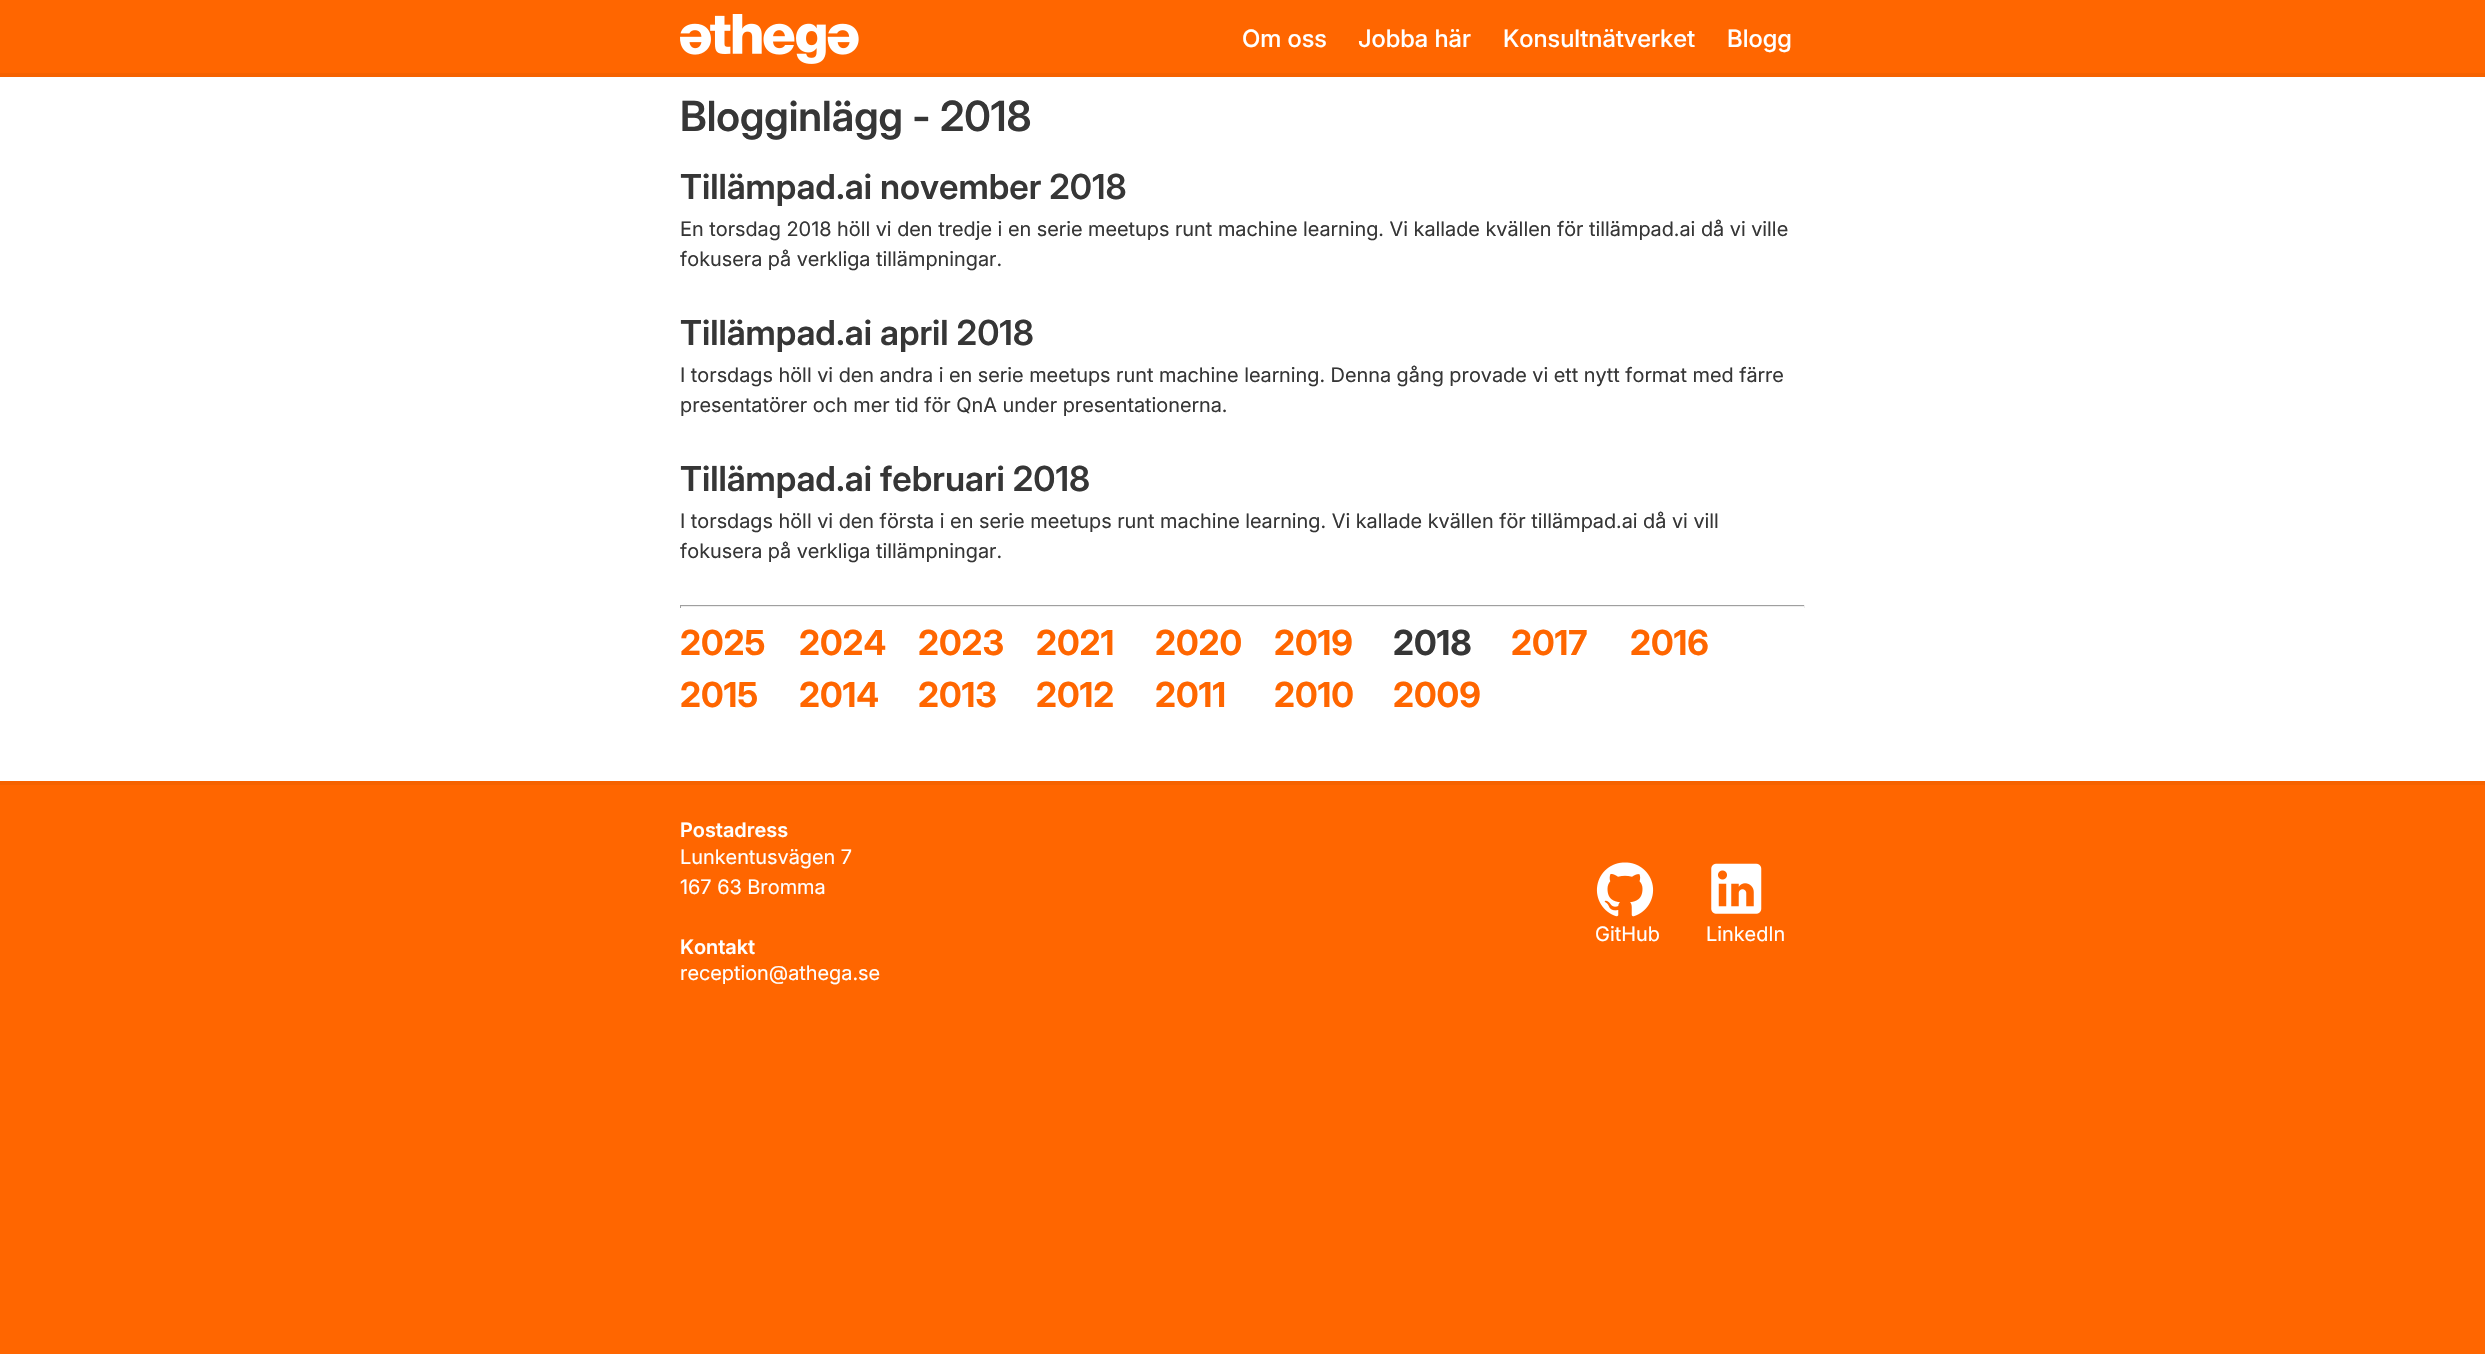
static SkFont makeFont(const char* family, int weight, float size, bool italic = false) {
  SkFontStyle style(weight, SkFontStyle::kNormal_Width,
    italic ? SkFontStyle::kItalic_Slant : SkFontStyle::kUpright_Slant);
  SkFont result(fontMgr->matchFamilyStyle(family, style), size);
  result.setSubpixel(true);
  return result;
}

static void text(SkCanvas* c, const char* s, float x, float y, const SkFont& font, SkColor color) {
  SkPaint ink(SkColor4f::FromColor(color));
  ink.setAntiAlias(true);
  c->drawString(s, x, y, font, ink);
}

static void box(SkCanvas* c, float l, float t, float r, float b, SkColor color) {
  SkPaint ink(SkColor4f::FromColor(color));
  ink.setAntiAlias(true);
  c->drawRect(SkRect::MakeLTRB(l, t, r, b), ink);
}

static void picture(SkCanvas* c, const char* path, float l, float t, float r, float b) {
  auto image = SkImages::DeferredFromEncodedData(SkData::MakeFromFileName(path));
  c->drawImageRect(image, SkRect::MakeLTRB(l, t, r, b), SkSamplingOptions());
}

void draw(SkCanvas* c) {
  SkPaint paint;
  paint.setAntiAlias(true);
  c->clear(0xffff6600);
  box(c, 0, 73, 2485, 77, 0xfff56200);
  picture(c, "img_01.png", 680, 14, 859, 64);
  SkFont face1 = makeFont("Inter", 500, 24);
  text(c, "Om oss", 1242, 47, face1, 0xffffffff);
  text(c, "Jobba här", 1358, 47, face1, 0xffffffff);
  text(c, "Konsultnätverket", 1503, 47, face1, 0xffffffff);
  text(c, "Blogg", 1727, 47, face1, 0xffffffff);
  box(c, 0, 77, 2485, 781, 0xffffffff);
  SkFont face2 = makeFont("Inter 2", 600, 41.5f);
  text(c, "Blogginlägg - 2018", 680, 131, face2, 0xff363636);
  SkFont face3 = makeFont("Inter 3", 600, 34.5f);
  text(c, "Tillämpad.ai november 2018", 680, 199, face3, 0xff363636);
  SkFont face4 = makeFont("Inter", 400, 20);
  text(c, "En torsdag 2018 höll vi den tredje i en serie meetups runt machine learning. Vi kallade kvällen för tillämpad.ai då vi ville", 680, 236, face4, 0xff363636);
  text(c, "fokusera på verkliga tillämpningar.", 680, 266, face4, 0xff363636);
  text(c, "Tillämpad.ai april 2018", 680, 345, face3, 0xff363636);
  text(c, "I torsdags höll vi den andra i en serie meetups runt machine learning. Denna gång provade vi ett nytt format med färre", 680, 382, face4, 0xff363636);
  text(c, "presentatörer och mer tid för QnA under presentationerna.", 680, 412, face4, 0xff363636);
  text(c, "Tillämpad.ai februari 2018", 680, 491, face3, 0xff363636);
  text(c, "I torsdags höll vi den första i en serie meetups runt machine learning. Vi kallade kvällen för tillämpad.ai då vi vill", 680, 528, face4, 0xff363636);
  text(c, "fokusera på verkliga tillämpningar.", 680, 558, face4, 0xff363636);
  box(c, 680, 605, 1805, 606, 0xff9f9f9f);
  box(c, 1804, 605, 1805, 608, 0xffeeeeee);
  box(c, 680, 606, 1805, 607, 0xffeeeeee);
  box(c, 680, 605, 681, 608, 0xff9f9f9f);
  SkFont face5 = makeFont("Inter", 700, 34.5f);
  text(c, "2025", 680, 655, face5, 0xffff6600);
  text(c, "2024", 799, 655, face5, 0xffff6600);
  text(c, "2023", 918, 655, face5, 0xffff6600);
  text(c, "2021", 1036, 655, face5, 0xffff6600);
  text(c, "2020", 1155, 655, face5, 0xffff6600);
  text(c, "2019", 1274, 655, face5, 0xffff6600);
  text(c, "2018", 1393, 655, face5, 0xff363636);
  text(c, "2017", 1511, 655, face5, 0xffff6600);
  text(c, "2016", 1630, 655, face5, 0xffff6600);
  text(c, "2015", 680, 707, face5, 0xffff6600);
  text(c, "2014", 799, 707, face5, 0xffff6600);
  text(c, "2013", 918, 707, face5, 0xffff6600);
  text(c, "2012", 1036, 707, face5, 0xffff6600);
  text(c, "2011", 1155, 707, face5, 0xffff6600);
  text(c, "2010", 1274, 707, face5, 0xffff6600);
  text(c, "2009", 1393, 707, face5, 0xffff6600);
  box(c, 0, 781, 2485, 785, 0xfff56200);
  SkFont face6 = makeFont("Inter", 600, 20);
  text(c, "Postadress", 680, 837, face6, 0xffffffff);
  text(c, "Lunkentusvägen 7", 680, 864, face4, 0xffffffff);
  text(c, "167 63 Bromma", 680, 894, face4, 0xffffffff);
  text(c, "Kontakt", 680, 954, face6, 0xffffffff);
  text(c, "reception@athega.se", 680, 980, face4, 0xffffffff);
  picture(c, "img_02.png", 1596, 862, 1654, 917);
  text(c, "GitHub", 1595, 941, face4, 0xffffffff);
  picture(c, "img_03.png", 1711, 863, 1762, 914);
  text(c, "LinkedIn", 1706, 941, face4, 0xffffffff);
}
